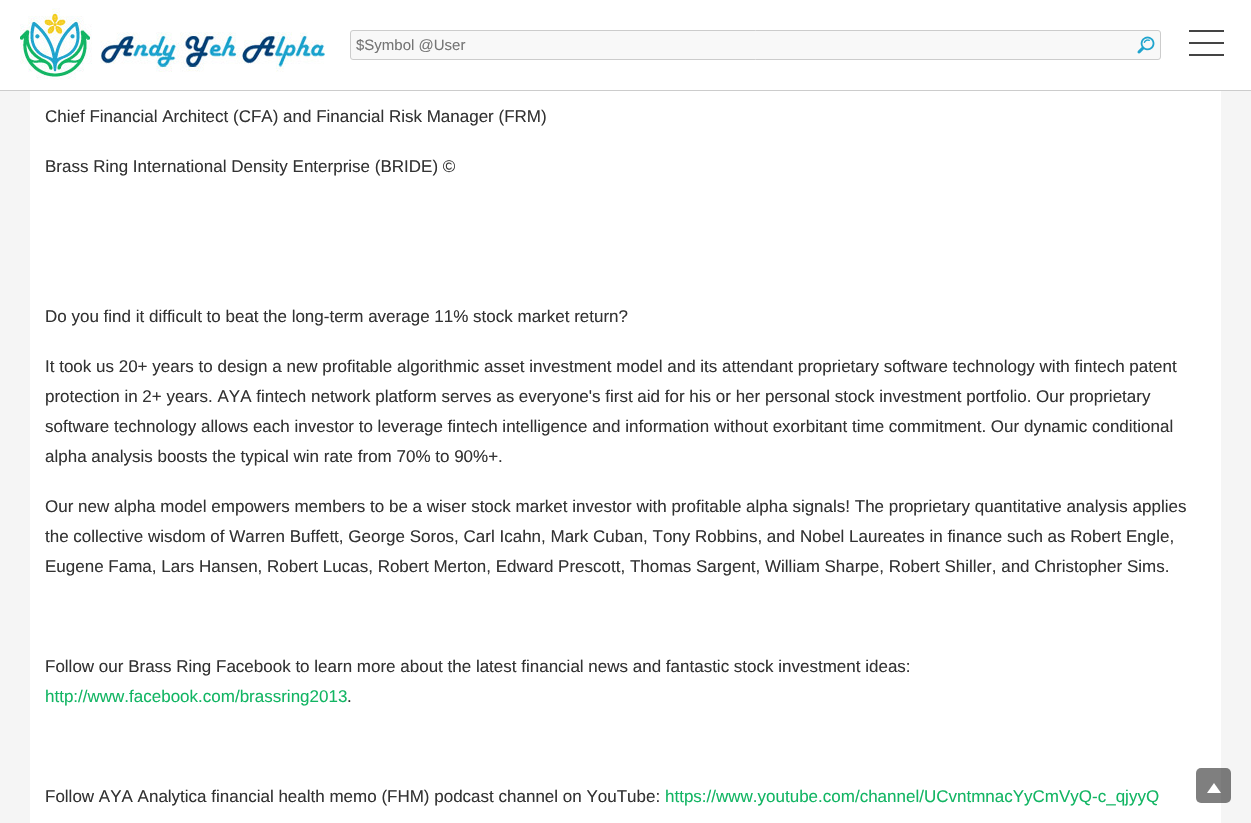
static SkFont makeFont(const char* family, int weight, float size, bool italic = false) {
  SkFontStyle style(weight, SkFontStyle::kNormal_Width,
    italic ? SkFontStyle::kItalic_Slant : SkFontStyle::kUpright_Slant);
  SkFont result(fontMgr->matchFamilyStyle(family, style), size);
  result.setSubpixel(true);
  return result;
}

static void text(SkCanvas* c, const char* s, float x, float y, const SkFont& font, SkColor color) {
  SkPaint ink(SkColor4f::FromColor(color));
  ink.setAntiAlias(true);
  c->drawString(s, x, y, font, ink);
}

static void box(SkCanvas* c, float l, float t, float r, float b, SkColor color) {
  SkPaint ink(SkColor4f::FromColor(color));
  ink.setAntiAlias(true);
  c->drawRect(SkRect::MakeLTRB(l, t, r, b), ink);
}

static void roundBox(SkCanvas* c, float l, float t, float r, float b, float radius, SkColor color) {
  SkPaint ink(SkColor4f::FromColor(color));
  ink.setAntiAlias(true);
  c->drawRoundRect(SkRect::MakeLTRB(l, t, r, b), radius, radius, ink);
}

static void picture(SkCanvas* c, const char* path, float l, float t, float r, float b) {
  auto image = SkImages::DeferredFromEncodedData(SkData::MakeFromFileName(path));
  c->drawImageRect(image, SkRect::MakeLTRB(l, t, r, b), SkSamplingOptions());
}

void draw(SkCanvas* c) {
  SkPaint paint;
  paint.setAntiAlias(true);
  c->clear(0xfff5f5f5);
  box(c, 0, 0, 1251, 90, 0xffffffff);
  box(c, 0, 90, 1251, 91, 0xffcccccc);
  picture(c, "img_01.png", 20, 8, 325, 80);
  paint.setColor(0xfff8f8f8);
  c->drawRoundRect(SkRect::MakeLTRB(350.5f, 30.5f, 1160.5f, 59.5f), 2.5f, 2.5f, paint);
  paint.setStyle(SkPaint::kStroke_Style);
  paint.setStrokeWidth(1);
  paint.setColor(0xffcccccc);
  c->drawRoundRect(SkRect::MakeLTRB(350.5f, 30.5f, 1160.5f, 59.5f), 2.5f, 2.5f, paint);
  SkFont face1 = makeFont("Liberation Sans", 400, 15);
  text(c, "$Symbol @User", 356, 50, face1, 0xff757575);
  picture(c, "img_02.png", 1137, 36, 1155, 54);
  box(c, 1189, 30, 1224, 32, 0xff444444);
  box(c, 1189, 42, 1224, 44, 0xff444444);
  box(c, 1189, 54, 1224, 56, 0xff444444);
  box(c, 30, 91, 1221, 823, 0xffffffff);
  SkFont face2 = makeFont("Liberation Sans", 400, 17);
  text(c, "Chief Financial Architect (CFA) and Financial Risk Manager (FRM)", 45, 122, face2, 0xff333333);
  text(c, "Brass Ring International Density Enterprise (BRIDE) ©", 45, 172, face2, 0xff333333);
  text(c, "Do you find it difficult to beat the long-term average 11% stock market return?", 45, 322, face2, 0xff333333);
  text(c, "It took us 20+ years to design a new profitable algorithmic asset investment model and its attendant proprietary software technology with fintech patent", 45, 372, face2, 0xff333333);
  text(c, "protection in 2+ years. AYA fintech network platform serves as everyone's first aid for his or her personal stock investment portfolio. Our proprietary", 45, 402, face2, 0xff333333);
  text(c, "software technology allows each investor to leverage fintech intelligence and information without exorbitant time commitment. Our dynamic conditional", 45, 432, face2, 0xff333333);
  text(c, "alpha analysis boosts the typical win rate from 70% to 90%+.", 45, 462, face2, 0xff333333);
  text(c, "Our new alpha model empowers members to be a wiser stock market investor with profitable alpha signals! The proprietary quantitative analysis applies", 45, 512, face2, 0xff333333);
  text(c, "the collective wisdom of Warren Buffett, George Soros, Carl Icahn, Mark Cuban, Tony Robbins, and Nobel Laureates in finance such as Robert Engle,", 45, 542, face2, 0xff333333);
  text(c, "Eugene Fama, Lars Hansen, Robert Lucas, Robert Merton, Edward Prescott, Thomas Sargent, William Sharpe, Robert Shiller, and Christopher Sims.", 45, 572, face2, 0xff333333);
  text(c, "Follow our Brass Ring Facebook to learn more about the latest financial news and fantastic stock investment ideas:", 45, 672, face2, 0xff333333);
  text(c, "http://www.facebook.com/brassring2013", 45, 702, face2, 0xff12b563);
  text(c, ".", 347, 702, face2, 0xff333333);
  text(c, "Follow AYA Analytica financial health memo (FHM) podcast channel on YouTube:", 45, 802, face2, 0xff333333);
  text(c, "https://www.youtube.com/channel/UCvntmnacYyCmVyQ-c_qjyyQ", 665, 802, face2, 0xff12b563);
  roundBox(c, 1196, 768, 1231, 803, 5, 0x80000000);
  paint.setStyle(SkPaint::kFill_Style);
  paint.setColor(0xffffffff);
  c->drawPath(SkPathBuilder().moveTo(1221, 793).lineTo(1207, 793).lineTo(1214, 783).close().detach(), paint);
}
